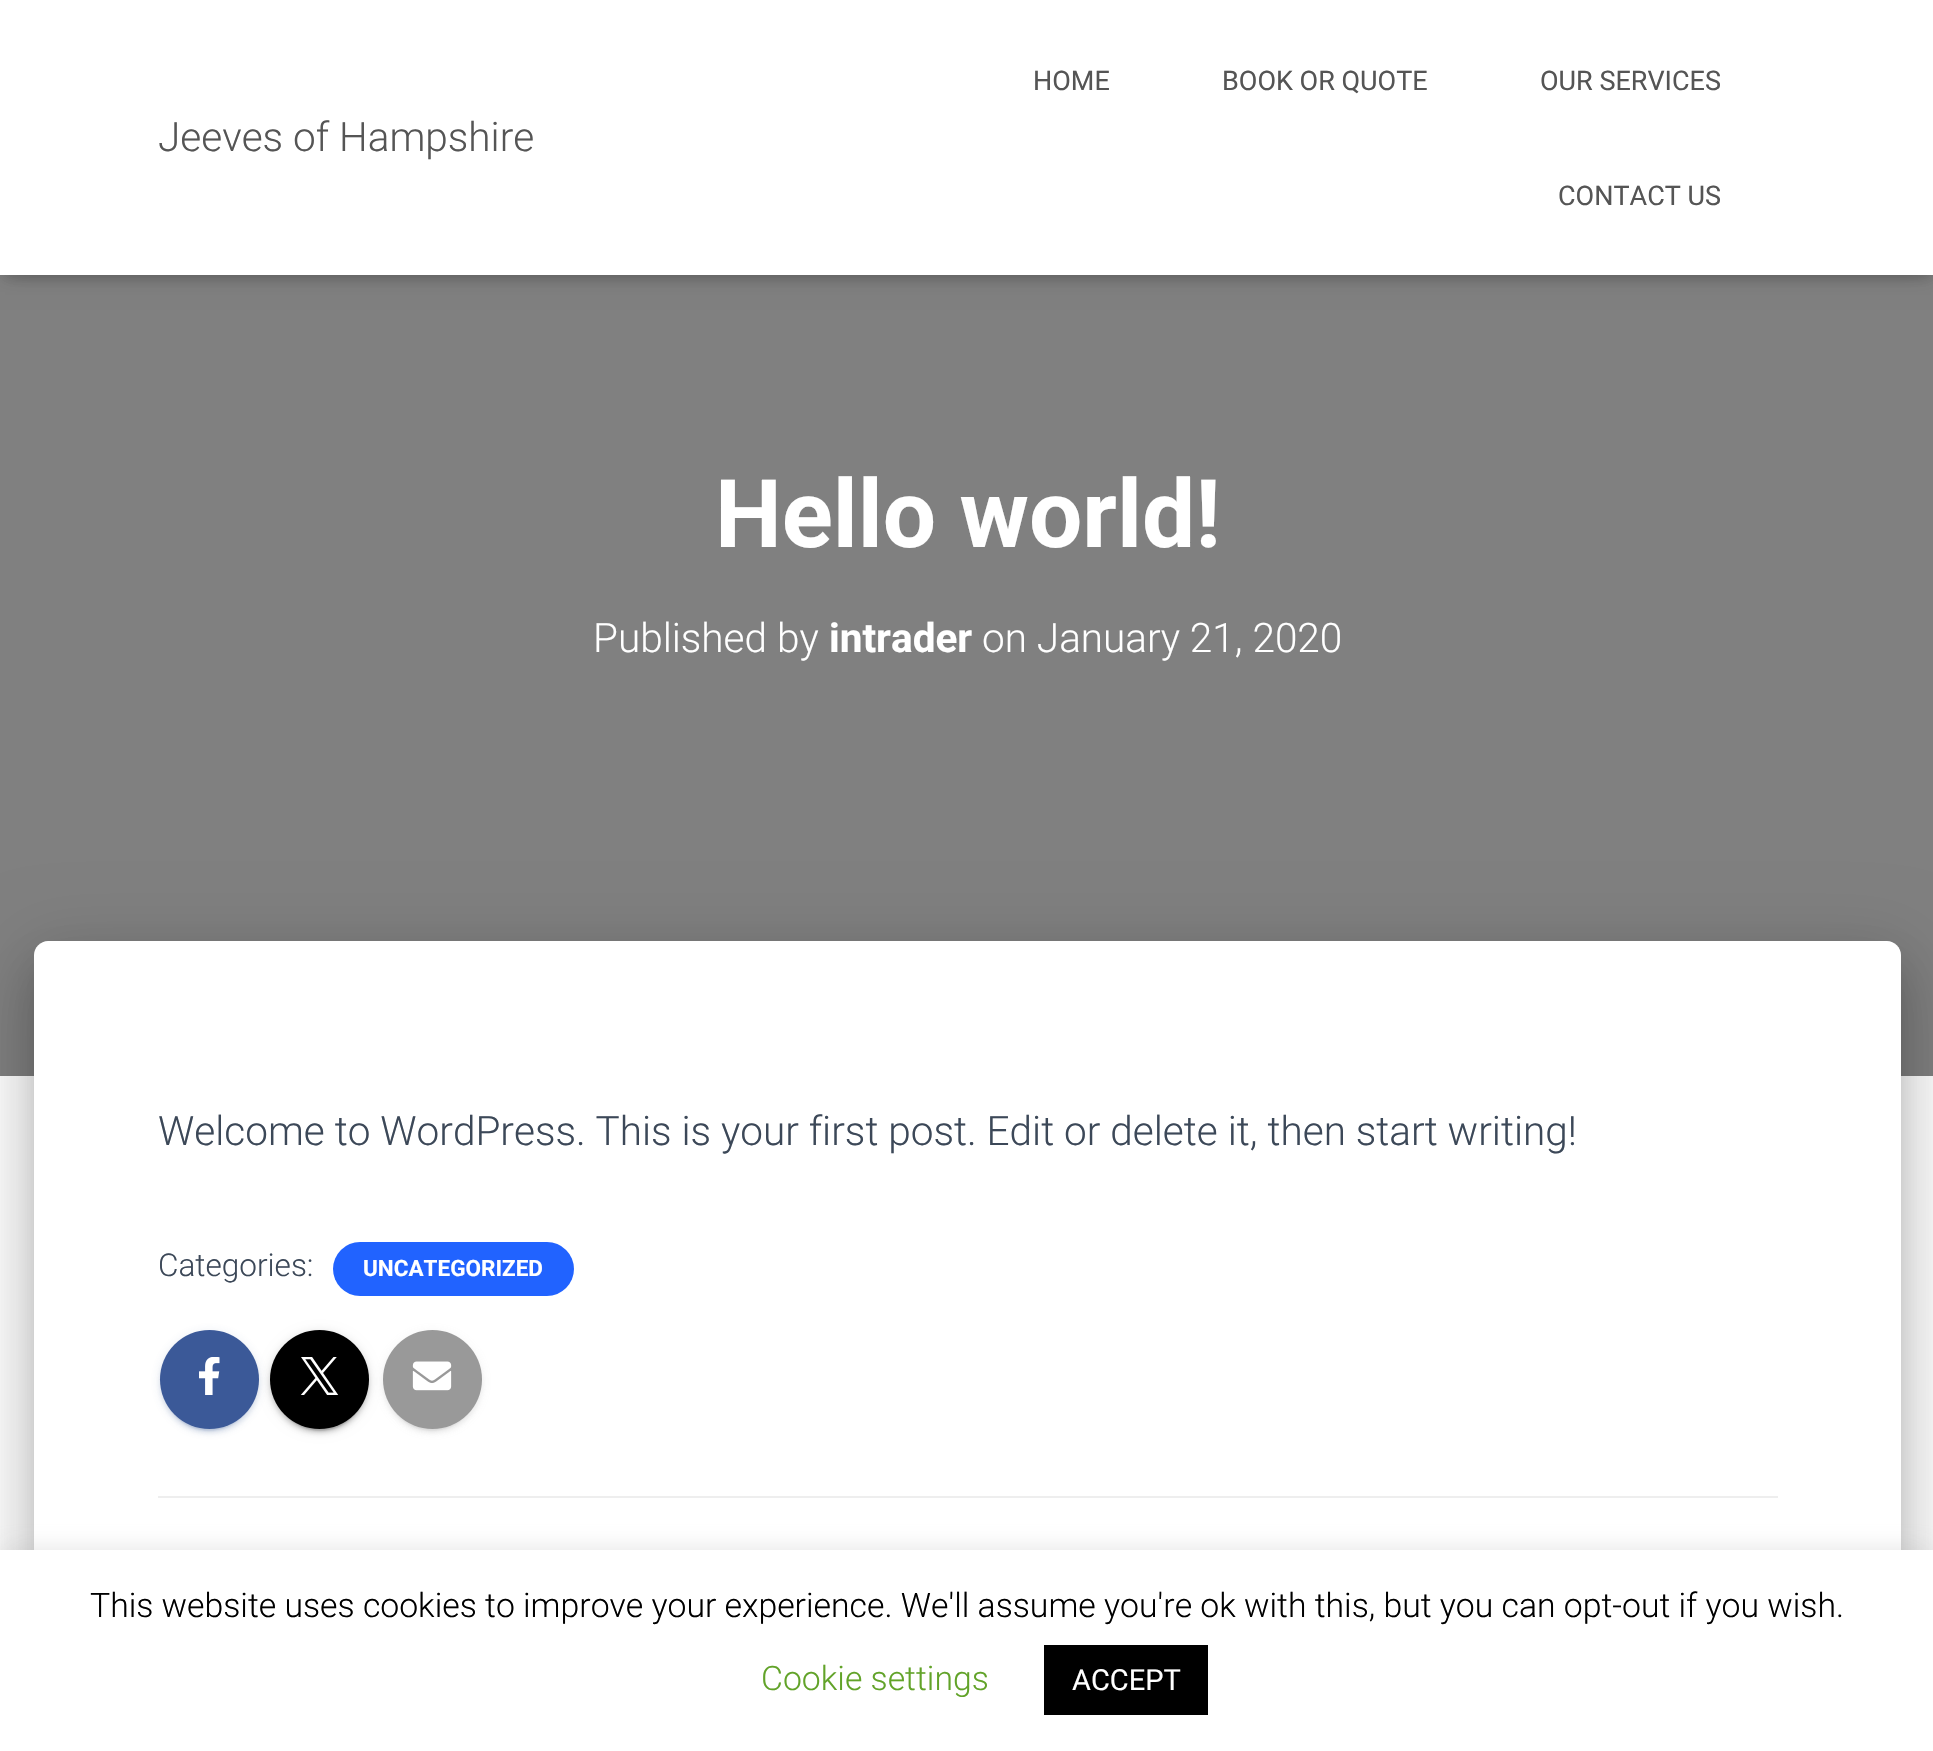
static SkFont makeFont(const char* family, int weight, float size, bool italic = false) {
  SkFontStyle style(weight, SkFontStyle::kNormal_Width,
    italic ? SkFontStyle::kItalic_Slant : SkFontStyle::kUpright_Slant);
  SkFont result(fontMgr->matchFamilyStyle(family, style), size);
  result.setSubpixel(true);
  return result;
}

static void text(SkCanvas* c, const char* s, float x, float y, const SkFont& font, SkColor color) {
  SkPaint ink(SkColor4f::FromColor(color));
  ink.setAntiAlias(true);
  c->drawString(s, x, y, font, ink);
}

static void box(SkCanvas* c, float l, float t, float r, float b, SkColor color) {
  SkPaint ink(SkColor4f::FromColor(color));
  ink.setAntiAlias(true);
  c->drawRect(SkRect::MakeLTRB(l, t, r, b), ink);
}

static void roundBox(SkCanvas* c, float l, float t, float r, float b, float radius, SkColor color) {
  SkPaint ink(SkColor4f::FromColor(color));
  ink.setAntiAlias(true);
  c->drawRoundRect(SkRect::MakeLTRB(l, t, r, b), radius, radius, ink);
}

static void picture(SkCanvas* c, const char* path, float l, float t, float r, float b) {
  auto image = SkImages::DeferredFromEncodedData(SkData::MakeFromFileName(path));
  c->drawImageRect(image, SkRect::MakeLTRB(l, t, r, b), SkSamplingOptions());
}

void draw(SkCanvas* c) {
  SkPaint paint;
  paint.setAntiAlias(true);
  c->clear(0xffffffff);
  box(c, 0, 275, 1933, 1076, 0xff808080);
  paint.setColor(0x1a000000);
  paint.setMaskFilter(SkMaskFilter::MakeBlur(kNormal_SkBlurStyle, 5.5f));
  c->drawRect(SkRect::MakeLTRB(5, 14, 1931, 279), paint);
  paint.setMaskFilter(nullptr);
  paint.setColor(0x1f000000);
  paint.setMaskFilter(SkMaskFilter::MakeBlur(kNormal_SkBlurStyle, 11));
  c->drawRect(SkRect::MakeLTRB(0, 2, 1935, 277), paint);
  paint.setMaskFilter(nullptr);
  paint.setColor(0x6b000000);
  paint.setMaskFilter(SkMaskFilter::MakeBlur(kNormal_SkBlurStyle, 11));
  c->drawRect(SkRect::MakeLTRB(14, 16, 1922, 263), paint);
  paint.setMaskFilter(nullptr);
  box(c, 0, 0, 1933, 275, 0xffffffff);
  SkFont face1 = makeFont("Roboto", 300, 40.5f);
  text(c, "Jeeves of Hampshire", 158, 151, face1, 0xff555555);
  SkFont face2 = makeFont("Roboto", 400, 27);
  text(c, "HOME", 1033, 90, face2, 0xff555555);
  text(c, "BOOK OR QUOTE", 1222, 90, face2, 0xff555555);
  text(c, "OUR SERVICES", 1540, 90, face2, 0xff555555);
  text(c, "CONTACT US", 1558, 205, face2, 0xff555555);
  SkFont face3 = makeFont("Roboto", 700, 94.5f);
  text(c, "Hello world!", 715, 547, face3, 0xffffffff);
  text(c, "Published by", 593, 652, face1, 0xffffffff);
  SkFont face4 = makeFont("Roboto", 700, 40.5f);
  text(c, "intrader", 829, 652, face4, 0xffffffff);
  text(c, "on January 21, 2020", 982, 652, face1, 0xffffffff);
  paint.setColor(0x33000000);
  paint.setMaskFilter(SkMaskFilter::MakeBlur(kNormal_SkBlurStyle, 11));
  c->drawRoundRect(SkRect::MakeLTRB(45, 970, 1890, 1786), 2, 2, paint);
  paint.setMaskFilter(nullptr);
  paint.setColor(0x1f000000);
  paint.setMaskFilter(SkMaskFilter::MakeBlur(kNormal_SkBlurStyle, 34));
  c->drawRoundRect(SkRect::MakeLTRB(23, 943, 1913, 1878), 25, 25, paint);
  paint.setMaskFilter(nullptr);
  paint.setColor(0x24000000);
  paint.setMaskFilter(SkMaskFilter::MakeBlur(kNormal_SkBlurStyle, 27));
  c->drawRoundRect(SkRect::MakeLTRB(29, 972, 1906, 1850), 18, 18, paint);
  paint.setMaskFilter(nullptr);
  paint.setColor(0xffffffff);
  c->drawPath(SkPathBuilder().moveTo(48, 941).lineTo(1887, 941).cubicTo(1894.5f, 941, 1901, 947.5f, 1901, 955).lineTo(1901, 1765).lineTo(34, 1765).lineTo(34, 955).cubicTo(34, 947.5f, 40.5f, 941, 48, 941).close().detach(), paint);
  text(c, "Welcome to WordPress. This is your first post. Edit or delete it, then start writing!", 158, 1145, face1, 0xff3c4858);
  SkFont face5 = makeFont("Roboto", 300, 31.5f);
  text(c, "Categories:", 158, 1276, face5, 0xff3c4858);
  roundBox(c, 333, 1242, 574, 1296, 27, 0xff2163ff);
  SkFont face6 = makeFont("Roboto", 700, 22.5f);
  text(c, "UNCATEGORIZED", 363, 1276, face6, 0xffffffff);
  paint.setColor(0x1f3b5998);
  paint.setMaskFilter(SkMaskFilter::MakeBlur(kNormal_SkBlurStyle, 5.5f));
  c->drawRoundRect(SkRect::MakeLTRB(160, 1332, 259, 1431), 49.5f, 49.5f, paint);
  paint.setMaskFilter(nullptr);
  paint.setColor(0x333b5998);
  paint.setMaskFilter(SkMaskFilter::MakeBlur(kNormal_SkBlurStyle, 1));
  c->drawRoundRect(SkRect::MakeLTRB(164, 1341, 254, 1431), 45, 45, paint);
  paint.setMaskFilter(nullptr);
  paint.setColor(0x243b5998);
  paint.setMaskFilter(SkMaskFilter::MakeBlur(kNormal_SkBlurStyle, 2));
  c->drawRoundRect(SkRect::MakeLTRB(160, 1334, 259, 1433), 49.5f, 49.5f, paint);
  paint.setMaskFilter(nullptr);
  paint.setColor(0xff3b5998);
  c->drawCircle(209.5f, 1379.5f, 49.5f, paint);
  picture(c, "img_01.png", 199, 1357, 220, 1395);
  paint.setColor(0x1f000000);
  paint.setMaskFilter(SkMaskFilter::MakeBlur(kNormal_SkBlurStyle, 5.5f));
  c->drawRoundRect(SkRect::MakeLTRB(270, 1332, 369, 1431), 49.5f, 49.5f, paint);
  paint.setMaskFilter(nullptr);
  paint.setColor(0x33000000);
  paint.setMaskFilter(SkMaskFilter::MakeBlur(kNormal_SkBlurStyle, 1));
  c->drawRoundRect(SkRect::MakeLTRB(275, 1341, 365, 1431), 45, 45, paint);
  paint.setMaskFilter(nullptr);
  paint.setColor(0x24000000);
  paint.setMaskFilter(SkMaskFilter::MakeBlur(kNormal_SkBlurStyle, 2));
  c->drawRoundRect(SkRect::MakeLTRB(270, 1334, 369, 1433), 49.5f, 49.5f, paint);
  paint.setMaskFilter(nullptr);
  paint.setColor(0xff000000);
  c->drawCircle(319.5f, 1379.5f, 49.5f, paint);
  picture(c, "img_02.png", 300, 1357, 339, 1395);
  paint.setColor(0x1f999999);
  paint.setMaskFilter(SkMaskFilter::MakeBlur(kNormal_SkBlurStyle, 5.5f));
  c->drawRoundRect(SkRect::MakeLTRB(383, 1332, 482, 1431), 49.5f, 49.5f, paint);
  paint.setMaskFilter(nullptr);
  paint.setColor(0x33999999);
  paint.setMaskFilter(SkMaskFilter::MakeBlur(kNormal_SkBlurStyle, 1));
  c->drawRoundRect(SkRect::MakeLTRB(387, 1341, 477, 1431), 45, 45, paint);
  paint.setMaskFilter(nullptr);
  paint.setColor(0x24999999);
  paint.setMaskFilter(SkMaskFilter::MakeBlur(kNormal_SkBlurStyle, 2));
  c->drawRoundRect(SkRect::MakeLTRB(383, 1334, 482, 1433), 49.5f, 49.5f, paint);
  paint.setMaskFilter(nullptr);
  paint.setColor(0xff999999);
  c->drawCircle(432.5f, 1379.5f, 49.5f, paint);
  picture(c, "img_03.png", 412, 1361, 452, 1391);
  box(c, 158, 1496, 1778, 1498, 0xffeeeeee);
  paint.setColor(0x4dacabab);
  paint.setMaskFilter(SkMaskFilter::MakeBlur(kNormal_SkBlurStyle, 11));
  c->drawRect(SkRect::MakeLTRB(0, 1548, 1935, 1751), paint);
  paint.setMaskFilter(nullptr);
  box(c, 0, 1550, 1933, 1751, 0xffffffff);
  SkFont face7 = makeFont("Roboto", 300, 33.75f);
  text(c, "This website uses cookies to improve your experience. We'll assume you're ok with this, but you can opt-out if you wish.", 90, 1617, face7, 0xff000000);
  text(c, "Cookie settings", 761, 1690, face7, 0xff62a329);
  box(c, 1044, 1645, 1208, 1715, 0xff000000);
  SkFont face8 = makeFont("Roboto", 400, 29);
  text(c, "ACCEPT", 1072, 1690, face8, 0xffffffff);
}
